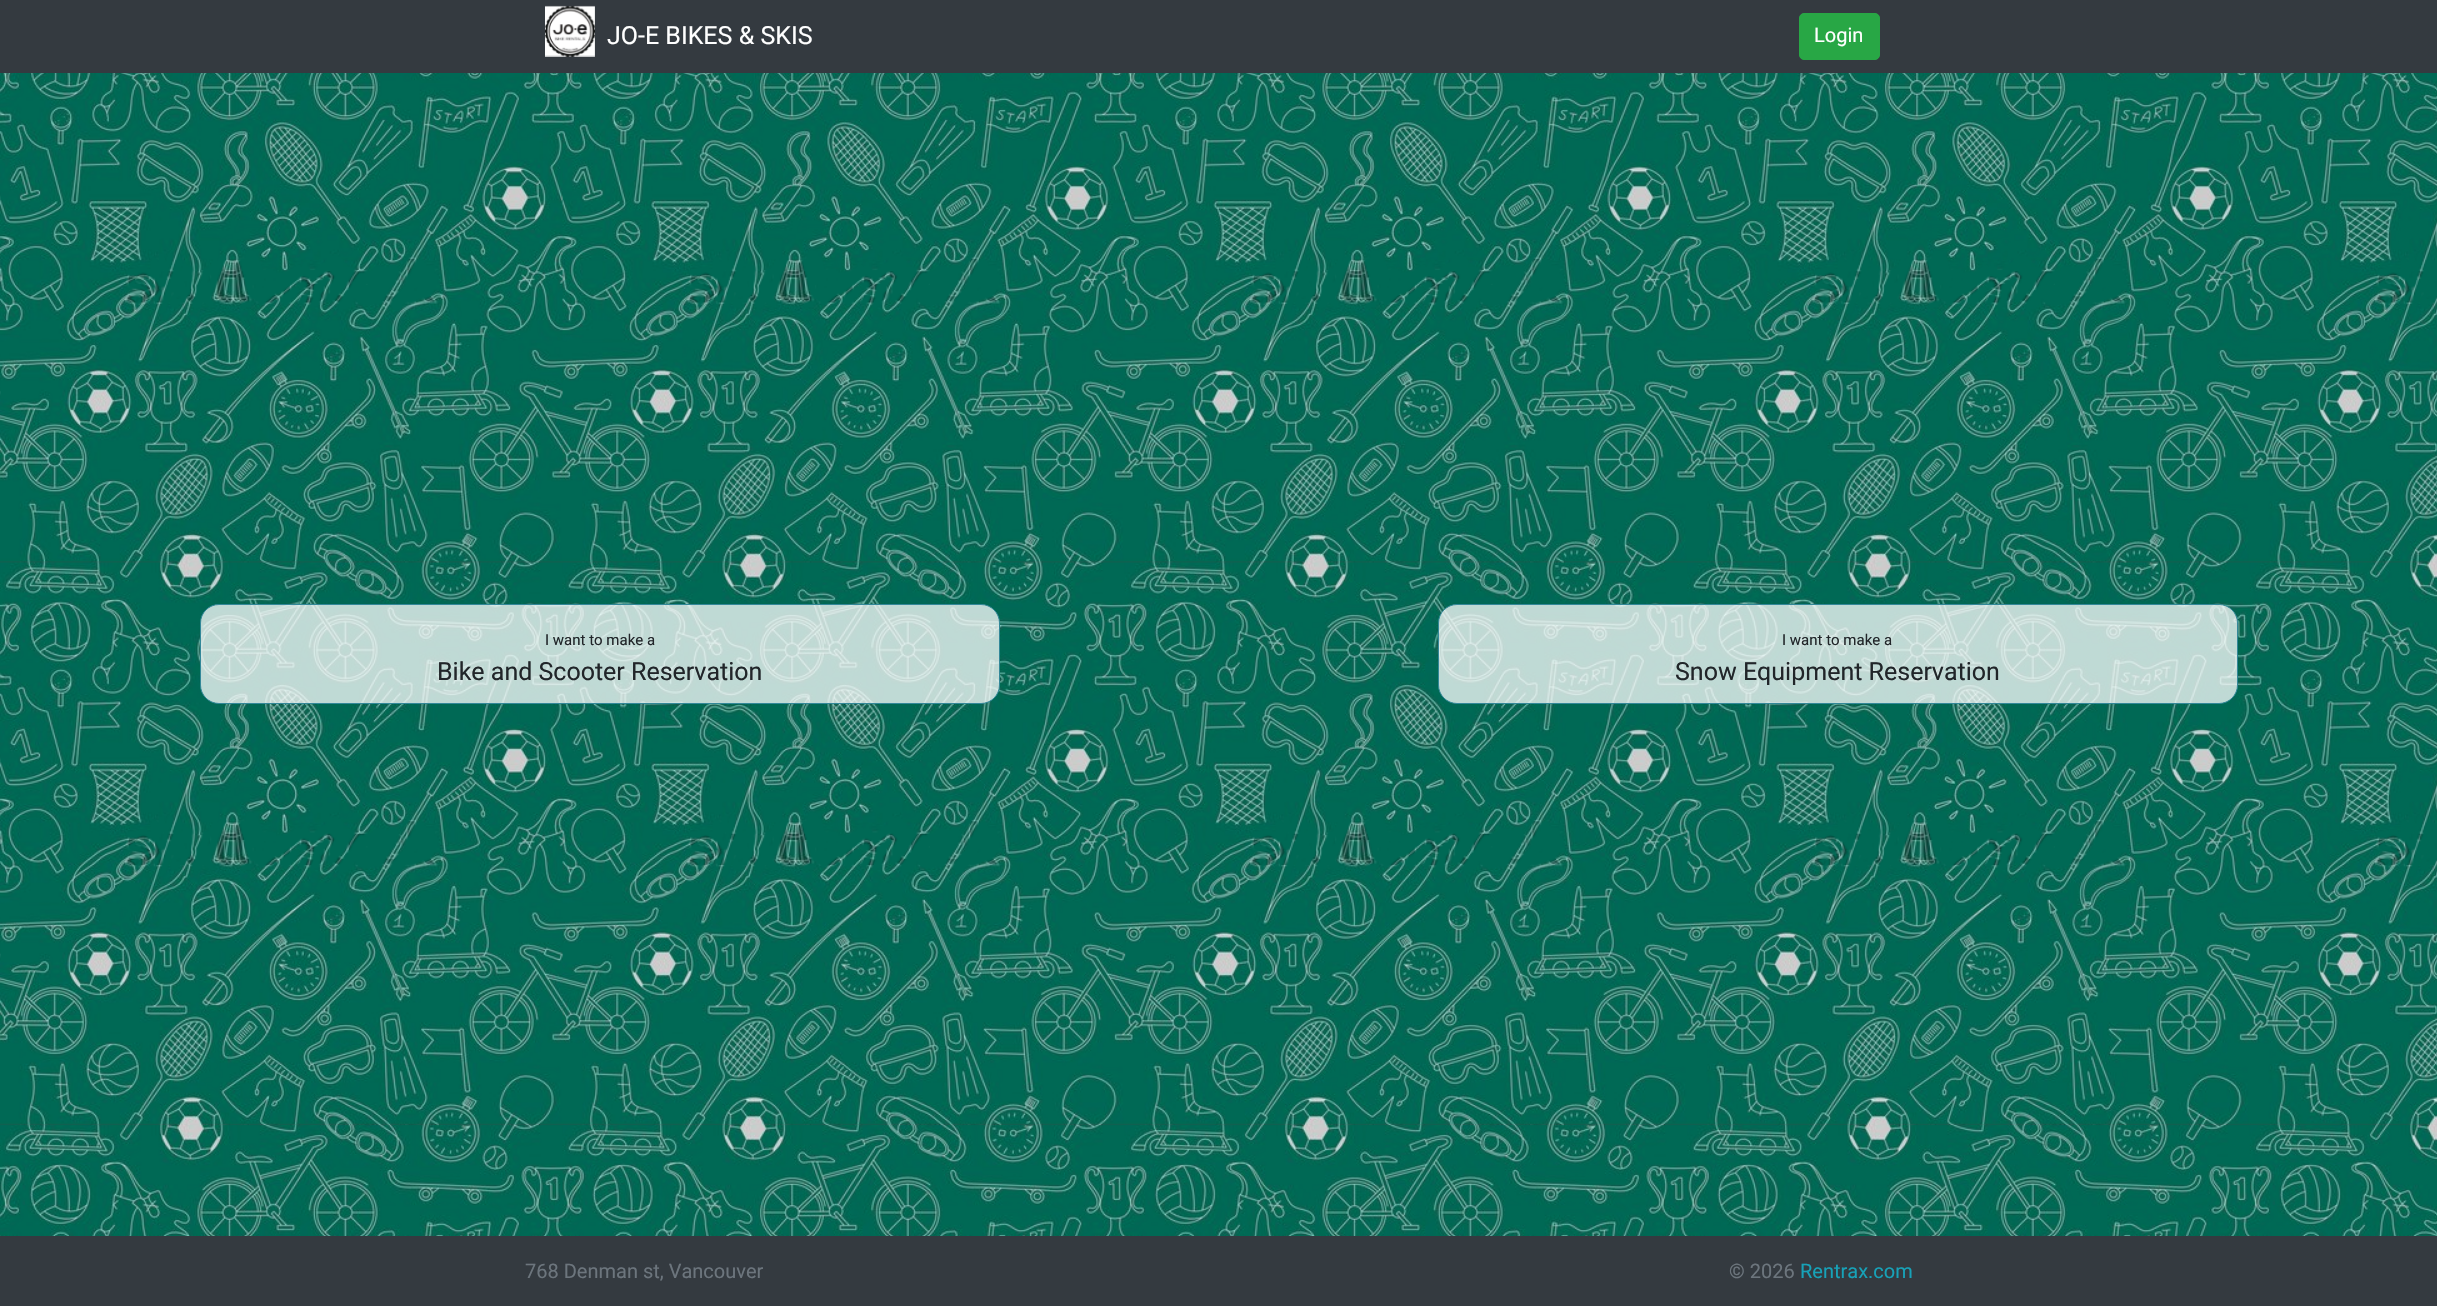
static SkFont makeFont(const char* family, int weight, float size, bool italic = false) {
  SkFontStyle style(weight, SkFontStyle::kNormal_Width,
    italic ? SkFontStyle::kItalic_Slant : SkFontStyle::kUpright_Slant);
  SkFont result(fontMgr->matchFamilyStyle(family, style), size);
  result.setSubpixel(true);
  return result;
}

static void text(SkCanvas* c, const char* s, float x, float y, const SkFont& font, SkColor color) {
  SkPaint ink(SkColor4f::FromColor(color));
  ink.setAntiAlias(true);
  c->drawString(s, x, y, font, ink);
}

static void box(SkCanvas* c, float l, float t, float r, float b, SkColor color) {
  SkPaint ink(SkColor4f::FromColor(color));
  ink.setAntiAlias(true);
  c->drawRect(SkRect::MakeLTRB(l, t, r, b), ink);
}

static void picture(SkCanvas* c, const char* path, float l, float t, float r, float b) {
  auto image = SkImages::DeferredFromEncodedData(SkData::MakeFromFileName(path));
  c->drawImageRect(image, SkRect::MakeLTRB(l, t, r, b), SkSamplingOptions());
}

void draw(SkCanvas* c) {
  SkPaint paint;
  paint.setAntiAlias(true);
  c->clear(0xffffffff);
  picture(c, "img_01.png", 0, 73, 2437, 1236);
  box(c, 0, 0, 2437, 73, 0xff343a40);
  picture(c, "img_02.png", 545, 5, 595, 57);
  SkFont face1 = makeFont("Roboto", 400, 25);
  text(c, "JO-E BIKES & SKIS", 607, 44, face1, 0xffffffff);
  paint.setColor(0xff28a745);
  c->drawRoundRect(SkRect::MakeLTRB(1799.5f, 13.5f, 1879.5f, 59.5f), 4.5f, 4.5f, paint);
  paint.setStyle(SkPaint::kStroke_Style);
  paint.setStrokeWidth(1);
  c->drawRoundRect(SkRect::MakeLTRB(1799.5f, 13.5f, 1879.5f, 59.5f), 4.5f, 4.5f, paint);
  SkFont face2 = makeFont("Roboto", 400, 20);
  text(c, "Login", 1814, 42, face2, 0xffffffff);
  paint.setStyle(SkPaint::kFill_Style);
  paint.setColor(0xbfffffff);
  c->drawRoundRect(SkRect::MakeLTRB(200.5f, 604.5f, 999.5f, 703.5f), 18.5f, 18.5f, paint);
  paint.setStyle(SkPaint::kStroke_Style);
  paint.setColor(0xff338899);
  c->drawRoundRect(SkRect::MakeLTRB(200.5f, 604.5f, 999.5f, 703.5f), 18.5f, 18.5f, paint);
  SkFont face3 = makeFont("Roboto", 400, 15);
  text(c, "I want to make a", 545, 645, face3, 0xff212529);
  text(c, "Bike and Scooter Reservation", 437, 680, face1, 0xff212529);
  paint.setStyle(SkPaint::kFill_Style);
  paint.setColor(0xbfffffff);
  c->drawRoundRect(SkRect::MakeLTRB(1438.5f, 604.5f, 2237.5f, 703.5f), 18.5f, 18.5f, paint);
  paint.setStyle(SkPaint::kStroke_Style);
  paint.setColor(0xff338899);
  c->drawRoundRect(SkRect::MakeLTRB(1438.5f, 604.5f, 2237.5f, 703.5f), 18.5f, 18.5f, paint);
  text(c, "I want to make a", 1782, 645, face3, 0xff212529);
  text(c, "Snow Equipment Reservation", 1675, 680, face1, 0xff212529);
  box(c, 0, 1236, 2437, 1306, 0xff343a40);
  text(c, "768 Denman st, Vancouver", 525, 1278, face2, 0xff6c757d);
  text(c, "© 2026", 1729, 1278, face2, 0xff6c757d);
  text(c, "Rentrax.com", 1800, 1278, face2, 0xff17a2b8);
}
